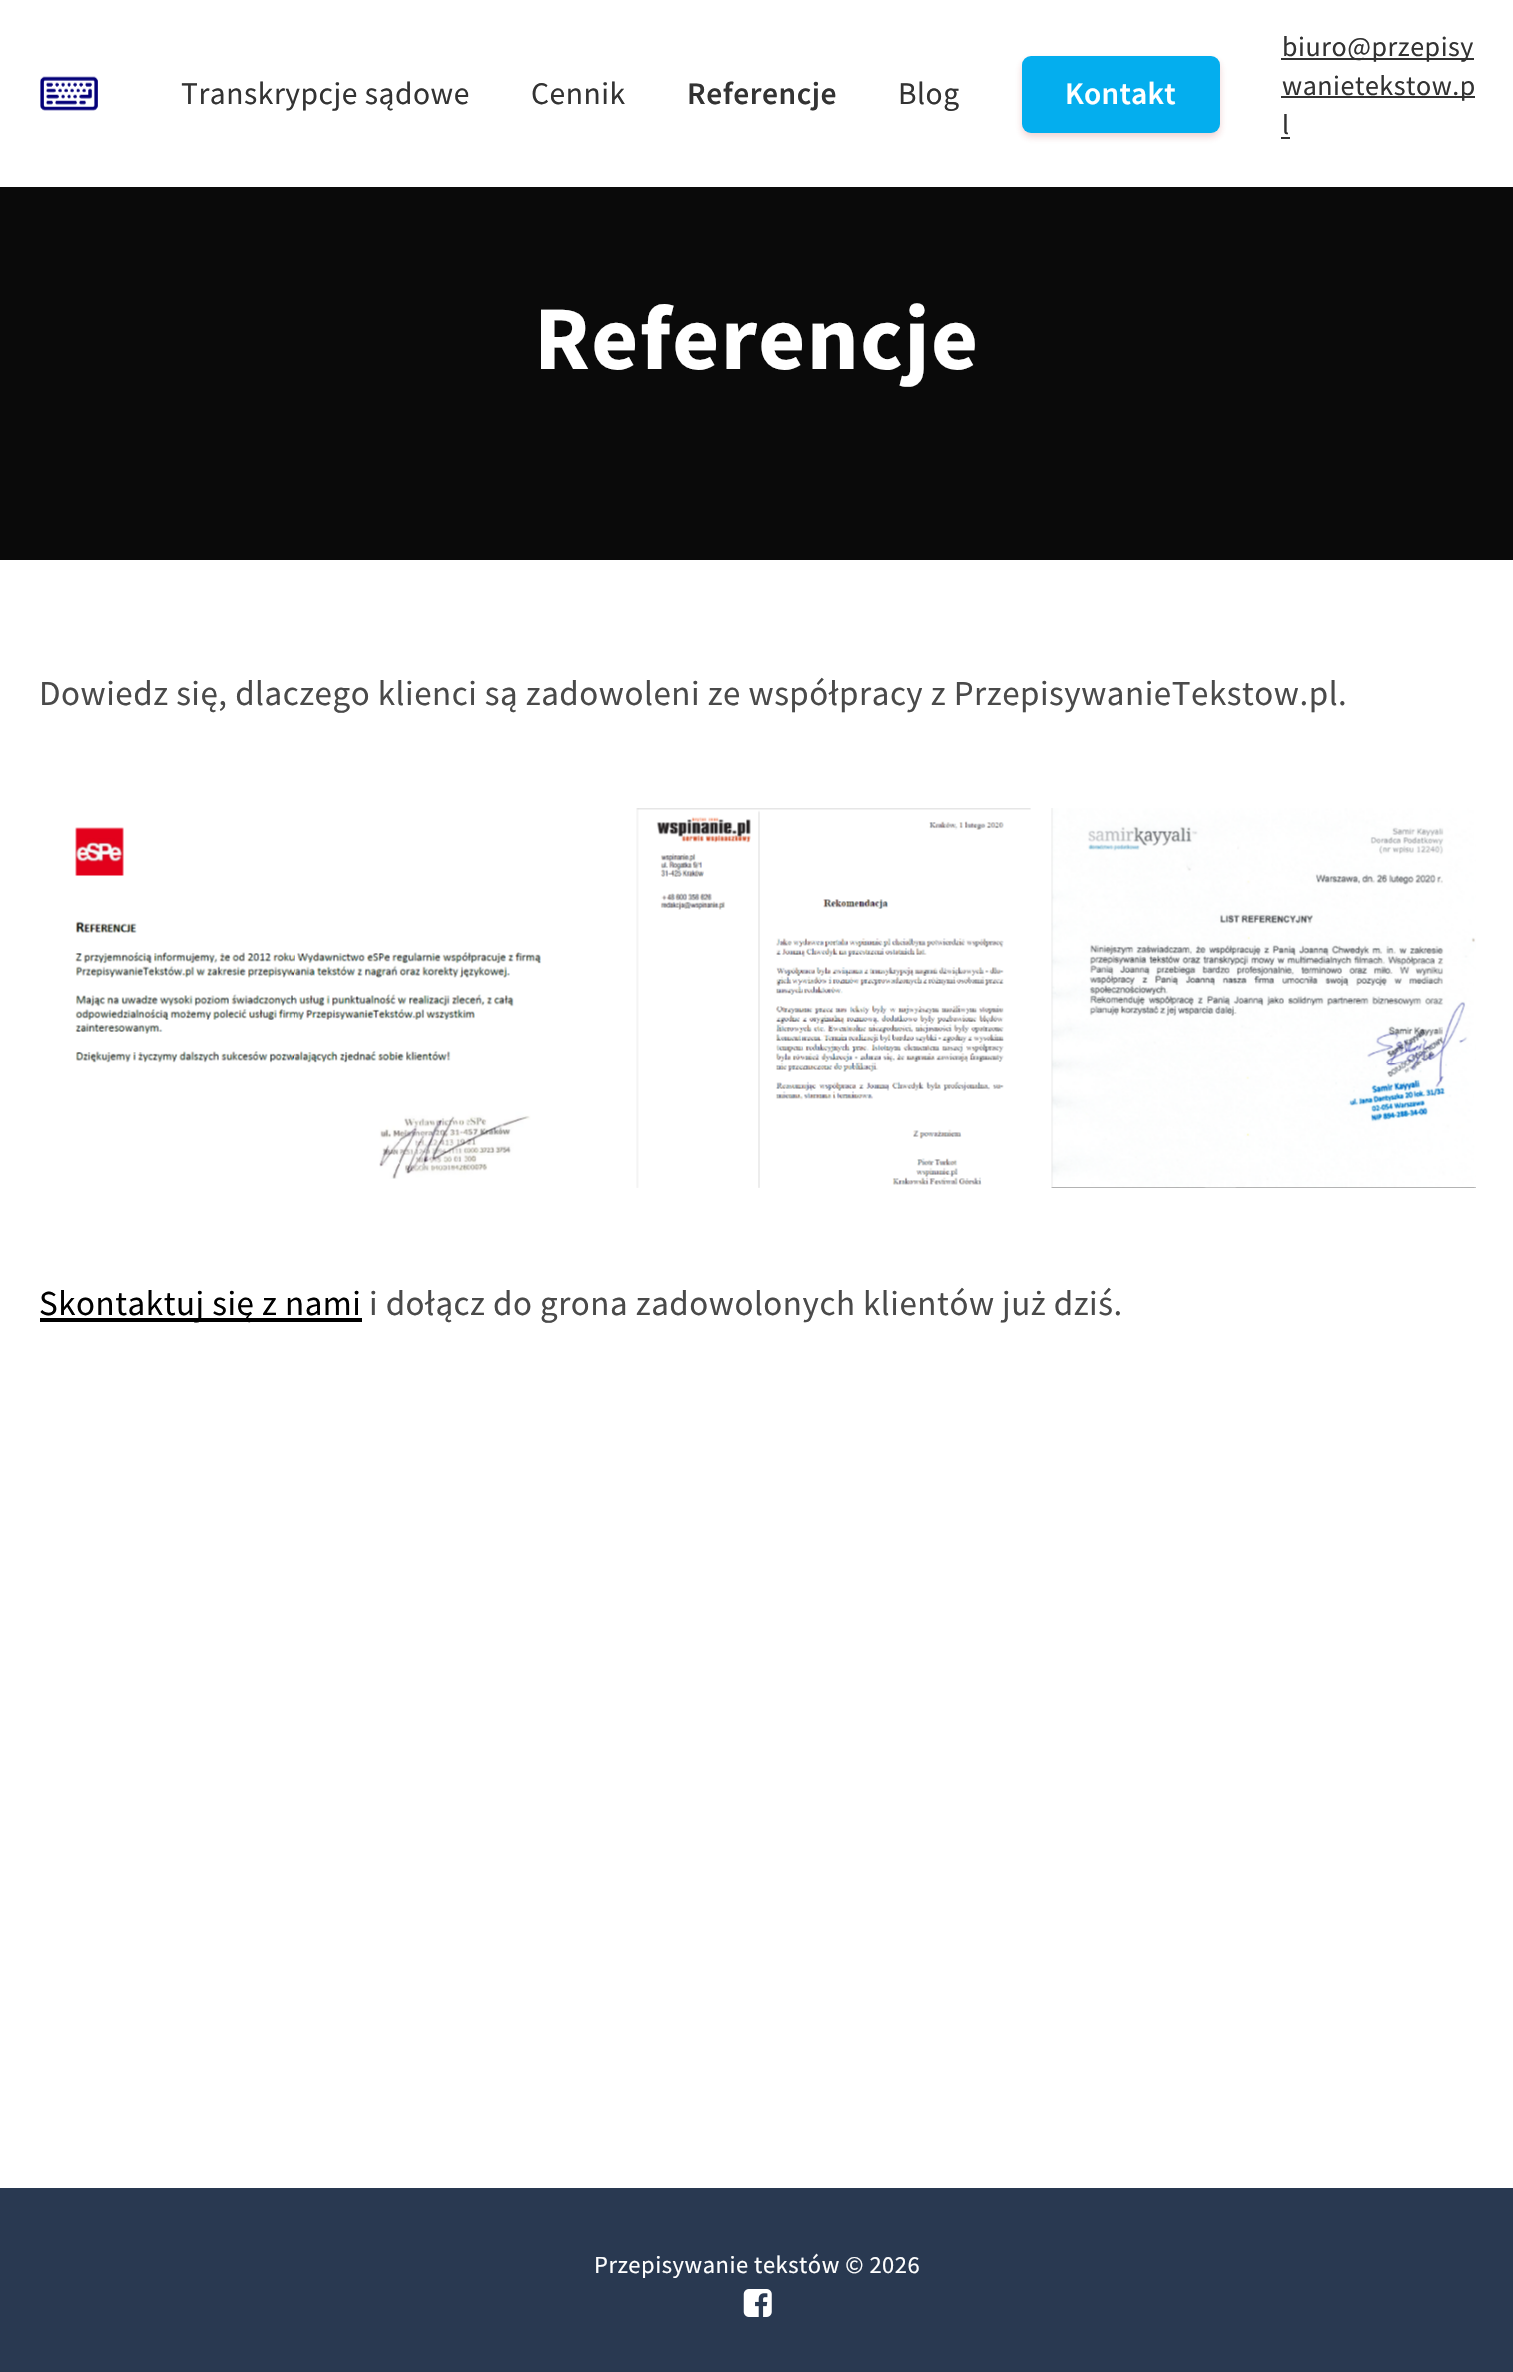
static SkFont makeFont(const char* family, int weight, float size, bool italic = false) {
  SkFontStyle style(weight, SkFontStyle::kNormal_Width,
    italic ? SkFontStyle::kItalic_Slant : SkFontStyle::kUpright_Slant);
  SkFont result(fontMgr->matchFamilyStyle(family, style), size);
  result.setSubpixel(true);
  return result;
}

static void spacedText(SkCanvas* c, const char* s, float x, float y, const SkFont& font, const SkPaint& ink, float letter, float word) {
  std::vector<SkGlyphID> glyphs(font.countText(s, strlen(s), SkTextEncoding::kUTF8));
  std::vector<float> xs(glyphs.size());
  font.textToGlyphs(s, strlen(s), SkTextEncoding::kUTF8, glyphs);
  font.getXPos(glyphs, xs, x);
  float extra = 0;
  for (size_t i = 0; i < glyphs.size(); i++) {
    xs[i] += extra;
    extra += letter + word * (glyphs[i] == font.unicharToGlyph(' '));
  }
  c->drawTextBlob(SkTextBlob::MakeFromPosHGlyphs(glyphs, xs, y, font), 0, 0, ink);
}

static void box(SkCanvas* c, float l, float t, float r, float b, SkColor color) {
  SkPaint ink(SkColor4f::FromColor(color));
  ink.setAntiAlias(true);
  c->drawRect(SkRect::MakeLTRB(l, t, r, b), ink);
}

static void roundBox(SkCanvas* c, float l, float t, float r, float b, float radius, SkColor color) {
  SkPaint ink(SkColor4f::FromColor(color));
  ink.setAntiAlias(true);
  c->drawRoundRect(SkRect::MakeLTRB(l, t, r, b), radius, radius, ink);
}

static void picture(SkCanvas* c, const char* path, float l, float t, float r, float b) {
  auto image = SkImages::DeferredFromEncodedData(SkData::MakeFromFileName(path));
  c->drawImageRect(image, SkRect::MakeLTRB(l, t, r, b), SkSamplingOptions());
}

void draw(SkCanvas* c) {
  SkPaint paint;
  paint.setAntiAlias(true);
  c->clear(0xffffffff);
  picture(c, "img_01.png", 40, 76, 98, 111);
  SkFont face1 = makeFont("Source Sans Pro", 400, 31.5f);
  paint.setColor(0xff333333);
  spacedText(c, "Transkrypcje sądowe", 181, 104, face1, paint, 0.53f, 0);
  spacedText(c, "Cennik", 531, 104, face1, paint, 0.53f, 0);
  SkFont face2 = makeFont("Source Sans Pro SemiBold", 600, 31.5f);
  spacedText(c, "Referencje", 687, 104, face2, paint, 0.53f, 0);
  spacedText(c, "Blog", 898, 104, face1, paint, 0.53f, 0);
  paint.setColor(0x33b32222);
  paint.setMaskFilter(SkMaskFilter::MakeBlur(kNormal_SkBlurStyle, 3.5f));
  c->drawRoundRect(SkRect::MakeLTRB(1022, 60, 1220, 137), 9, 9, paint);
  paint.setMaskFilter(nullptr);
  roundBox(c, 1022, 56, 1220, 133, 9, 0xff04aeee);
  paint.setColor(0xffffffff);
  spacedText(c, "Kontakt", 1065, 104, face2, paint, 0.25f, 0);
  box(c, 1281, 58, 1474, 60, 0xff333333);
  SkFont face3 = makeFont("Source Sans Pro", 400, 28);
  paint.setColor(0xff333333);
  spacedText(c, "biuro@przepisy", 1282, 56, face3, paint, 0.53f, 0);
  box(c, 1281, 96, 1475, 98, 0xff333333);
  spacedText(c, "wanietekstow.p", 1282, 95, face3, paint, 0.53f, 0);
  spacedText(c, "l", 1282, 134, face3, paint, 0.53f, 0);
  box(c, 1281, 137, 1290, 139, 0xff333333);
  box(c, 0, 187, 1513, 560, 0xff0a0a0a);
  SkFont face4 = makeFont("Source Sans Pro", 700, 91);
  paint.setColor(0xffffffff);
  spacedText(c, "Referencje", 534, 369, face4, paint, 1.4f, 0);
  SkFont face5 = makeFont("Source Sans Pro", 400, 35);
  paint.setColor(0xff4a4a4a);
  spacedText(c, "Dowiedz się, dlaczego klienci są zadowoleni ze współpracy z PrzepisywanieTekstow.pl.", 39, 705, face5, paint, 0.53f, 0);
  picture(c, "img_02.png", 75, 827, 542, 1179);
  picture(c, "img_03.png", 636, 808, 1031, 1188);
  picture(c, "img_04.png", 1051, 808, 1476, 1188);
  box(c, 40, 1318, 362, 1322, 0xff000000);
  paint.setColor(0xff000000);
  spacedText(c, "Skontaktuj się z nami", 39, 1315, face5, paint, 0.53f, 0);
  paint.setColor(0xff4a4a4a);
  spacedText(c, "i dołącz do grona zadowolonych klientów już dziś.", 369, 1315, face5, paint, 0.53f, 0);
  box(c, 0, 2188, 1513, 2372, 0xff293951);
  SkFont face6 = makeFont("Source Sans Pro", 400, 24.5f);
  paint.setColor(0xffffffff);
  spacedText(c, "Przepisywanie tekstów © 2026", 594, 2273, face6, paint, 0.53f, 0);
  picture(c, "img_05.png", 743, 2289, 772, 2317);
}
